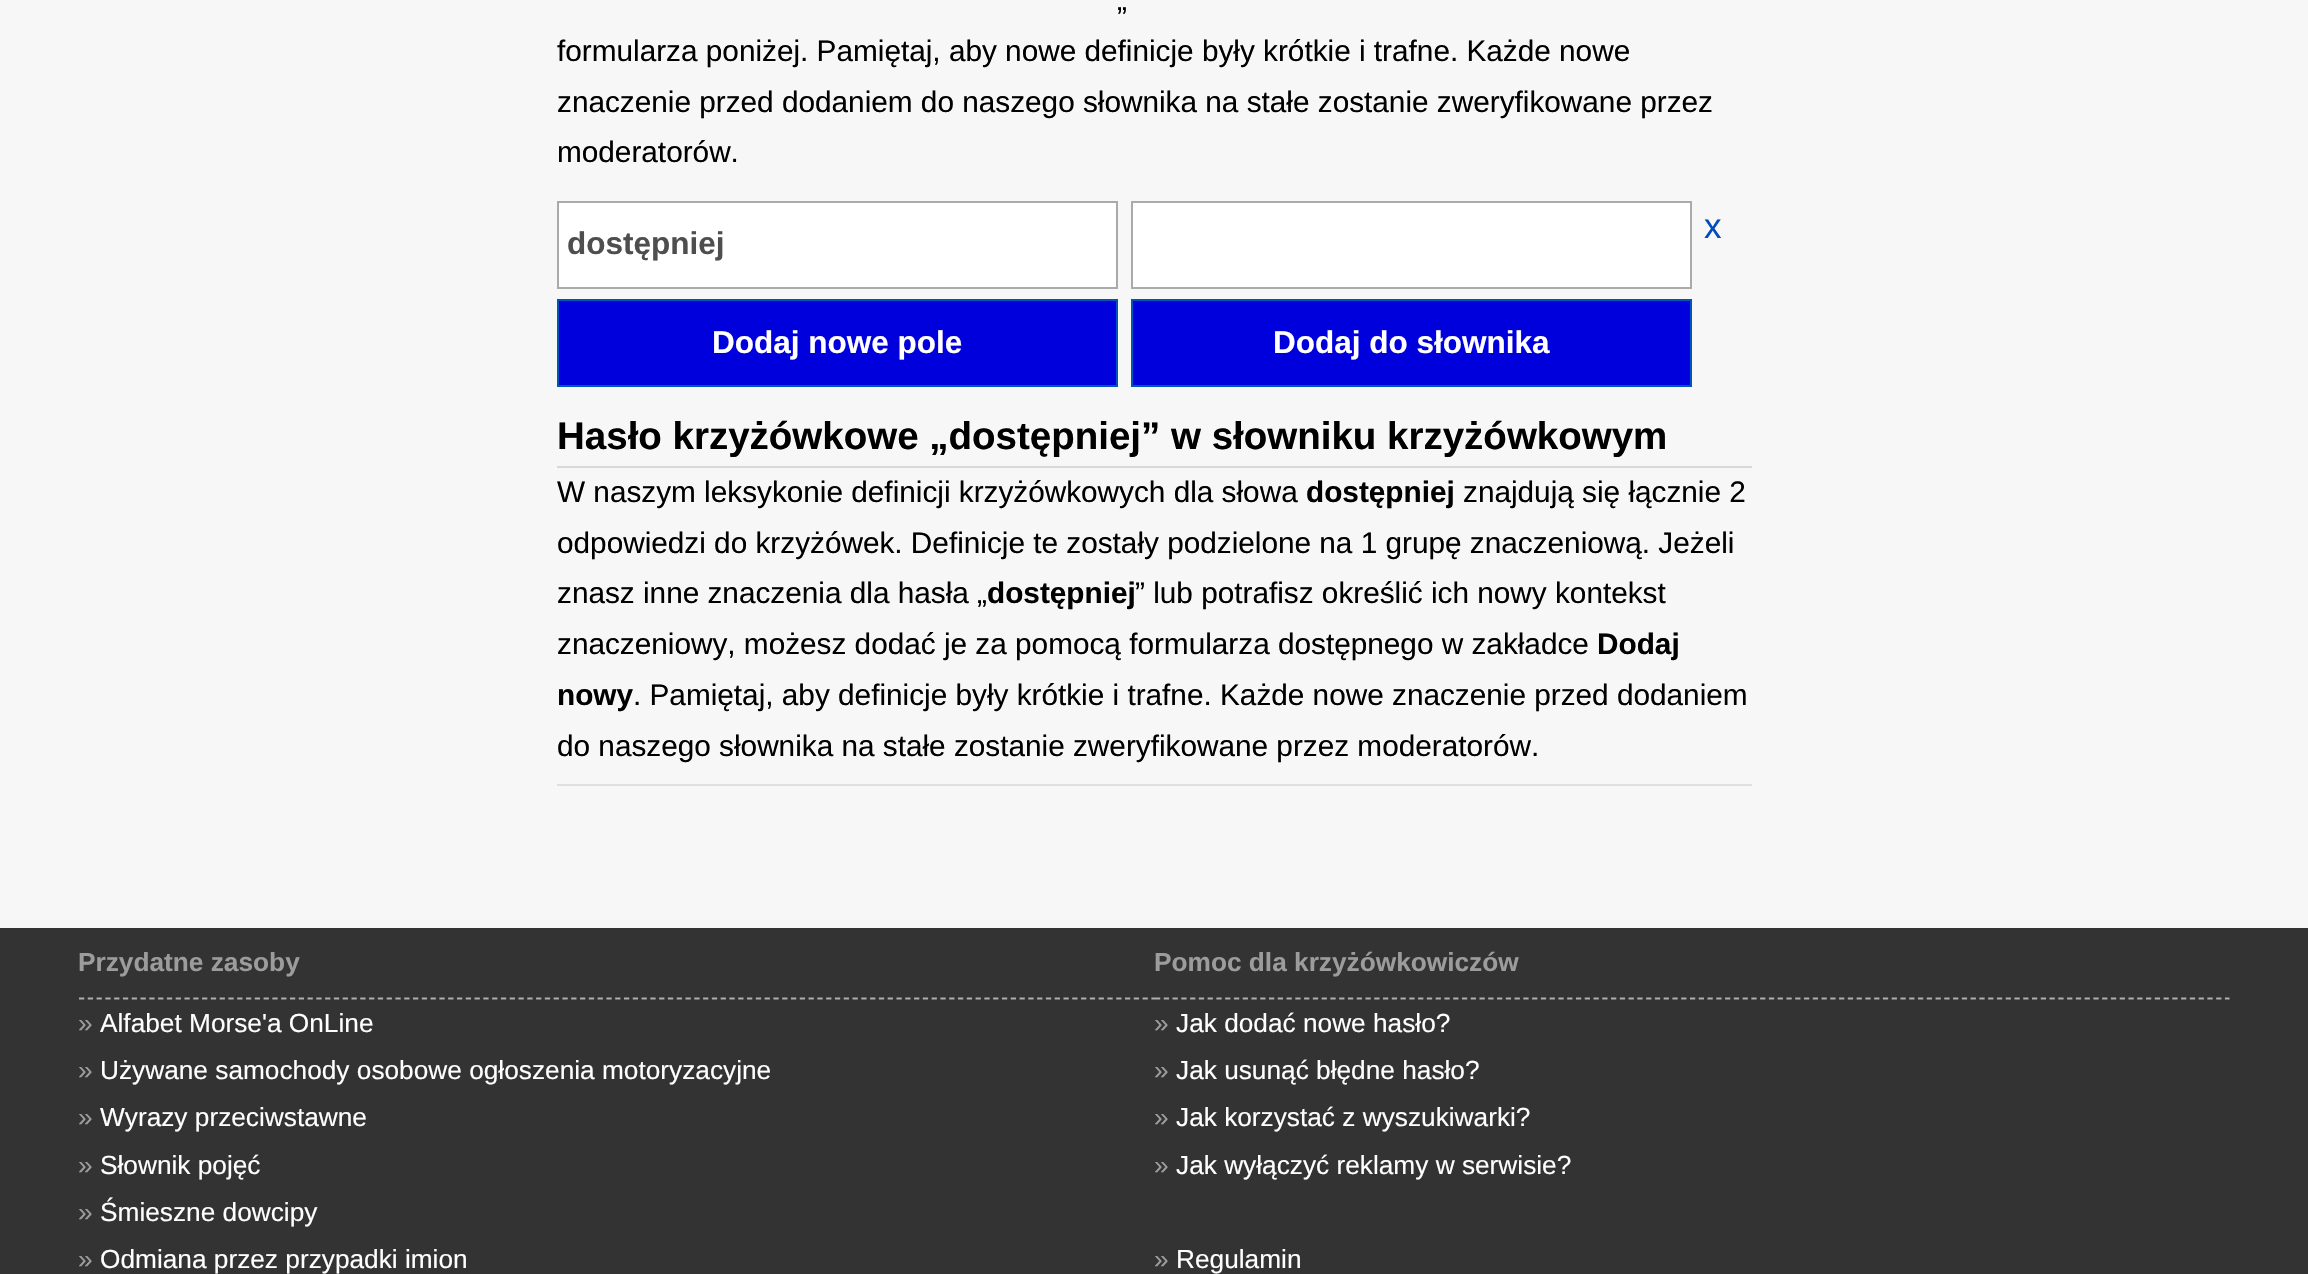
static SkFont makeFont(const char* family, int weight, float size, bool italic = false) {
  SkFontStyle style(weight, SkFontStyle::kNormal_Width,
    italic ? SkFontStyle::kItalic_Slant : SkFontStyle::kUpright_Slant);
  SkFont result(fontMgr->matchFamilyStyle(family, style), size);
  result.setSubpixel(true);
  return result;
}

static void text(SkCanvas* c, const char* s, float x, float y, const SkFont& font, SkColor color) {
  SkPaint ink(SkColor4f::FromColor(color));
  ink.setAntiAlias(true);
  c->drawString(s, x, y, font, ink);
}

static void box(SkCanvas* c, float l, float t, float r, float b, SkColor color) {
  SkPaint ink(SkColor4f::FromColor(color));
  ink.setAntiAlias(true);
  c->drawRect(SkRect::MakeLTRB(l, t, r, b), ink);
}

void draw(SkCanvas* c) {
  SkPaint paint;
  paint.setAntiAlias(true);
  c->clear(0xfff7f7f7);
  box(c, 557, 784, 1752, 786, 0xffdfdfdf);
  SkFont face1 = makeFont("Liberation Sans", 400, 29.75f);
  text(c, "„", 1117, 10, face1, 0xff000000);
  text(c, "formularza poniżej. Pamiętaj, aby nowe definicje były krótkie i trafne. Każde nowe", 557, 61, face1, 0xff000000);
  text(c, "znaczenie przed dodaniem do naszego słownika na stałe zostanie zweryfikowane przez", 557, 112, face1, 0xff000000);
  text(c, "moderatorów.", 557, 162, face1, 0xff000000);
  paint.setColor(0xffffffff);
  c->drawRect(SkRect::MakeLTRB(1132, 202, 1691, 288), paint);
  paint.setStyle(SkPaint::kStroke_Style);
  paint.setStrokeWidth(2);
  paint.setColor(0xffaaaaaa);
  c->drawRect(SkRect::MakeLTRB(1132, 202, 1691, 288), paint);
  SkFont face2 = makeFont("Liberation Sans", 400, 35);
  text(c, "x", 1704, 238, face2, 0xff004dbd);
  paint.setStyle(SkPaint::kFill_Style);
  paint.setColor(0xffffffff);
  c->drawRect(SkRect::MakeLTRB(558, 202, 1117, 288), paint);
  paint.setStyle(SkPaint::kStroke_Style);
  paint.setColor(0xffaaaaaa);
  c->drawRect(SkRect::MakeLTRB(558, 202, 1117, 288), paint);
  SkFont face3 = makeFont("Liberation Sans", 700, 31.5f);
  text(c, "dostępniej", 567, 254, face3, 0xff4e4e4e);
  paint.setStyle(SkPaint::kFill_Style);
  paint.setColor(0xff0000dd);
  c->drawRect(SkRect::MakeLTRB(558, 300, 1117, 386), paint);
  paint.setStyle(SkPaint::kStroke_Style);
  paint.setColor(0xff0055bd);
  c->drawRect(SkRect::MakeLTRB(558, 300, 1117, 386), paint);
  text(c, "Dodaj nowe pole", 712, 353, face3, 0xffffffff);
  paint.setStyle(SkPaint::kFill_Style);
  paint.setColor(0xff0000dd);
  c->drawRect(SkRect::MakeLTRB(1132, 300, 1691, 386), paint);
  paint.setStyle(SkPaint::kStroke_Style);
  paint.setColor(0xff0055bd);
  c->drawRect(SkRect::MakeLTRB(1132, 300, 1691, 386), paint);
  text(c, "Dodaj do słownika", 1273, 353, face3, 0xffffffff);
  box(c, 557, 466, 1752, 468, 0xffd8d8d8);
  SkFont face4 = makeFont("Liberation Sans", 700, 38.5f);
  text(c, "Hasło krzyżówkowe „dostępniej” w słowniku krzyżówkowym", 557, 449, face4, 0xff000000);
  text(c, "W naszym leksykonie definicji krzyżówkowych dla słowa", 557, 502, face1, 0xff000000);
  SkFont face5 = makeFont("Liberation Sans", 700, 29.75f);
  text(c, "dostępniej", 1306, 502, face5, 0xff000000);
  text(c, "znajdują się łącznie 2", 1463, 502, face1, 0xff000000);
  text(c, "odpowiedzi do krzyżówek. Definicje te zostały podzielone na 1 grupę znaczeniową. Jeżeli", 557, 553, face1, 0xff000000);
  text(c, "znasz inne znaczenia dla hasła „", 557, 603, face1, 0xff000000);
  text(c, "dostępniej", 987, 603, face5, 0xff000000);
  text(c, "” lub potrafisz określić ich nowy kontekst", 1135, 603, face1, 0xff000000);
  text(c, "znaczeniowy, możesz dodać je za pomocą formularza dostępnego w zakładce", 557, 654, face1, 0xff000000);
  text(c, "Dodaj", 1597, 654, face5, 0xff000000);
  text(c, "nowy", 557, 705, face5, 0xff000000);
  text(c, ". Pamiętaj, aby definicje były krótkie i trafne. Każde nowe znaczenie przed dodaniem", 633, 705, face1, 0xff000000);
  text(c, "do naszego słownika na stałe zostanie zweryfikowane przez moderatorów.", 557, 756, face1, 0xff000000);
  box(c, 0, 928, 2308, 1274, 0xff333333);
  paint.setStrokeWidth(1.8f);
  paint.setColor(0xffafafaf);
  paint.setPathEffect(SkDashPathEffect::Make({{5.25f, 3.54f}}, 0));
  c->drawPath(SkPathBuilder().moveTo(79, 998.5f).lineTo(1155, 998.5f).detach(), paint);
  paint.setPathEffect(nullptr);
  SkFont face6 = makeFont("Liberation Sans", 700, 26.25f);
  text(c, "Przydatne zasoby", 78, 971, face6, 0xff9c9c9c);
  SkFont face7 = makeFont("Liberation Sans", 400, 26.25f);
  text(c, "»", 78, 1032, face7, 0xff9c9c9c);
  text(c, "Alfabet Morse'a OnLine", 100, 1032, face7, 0xffffffff);
  text(c, "»", 78, 1079, face7, 0xff9c9c9c);
  text(c, "Używane samochody osobowe ogłoszenia motoryzacyjne", 100, 1079, face7, 0xffffffff);
  text(c, "»", 78, 1126, face7, 0xff9c9c9c);
  text(c, "Wyrazy przeciwstawne", 100, 1126, face7, 0xffffffff);
  text(c, "»", 78, 1174, face7, 0xff9c9c9c);
  text(c, "Słownik pojęć", 100, 1174, face7, 0xffffffff);
  text(c, "»", 78, 1221, face7, 0xff9c9c9c);
  text(c, "Śmieszne dowcipy", 100, 1221, face7, 0xffffffff);
  text(c, "»", 78, 1268, face7, 0xff9c9c9c);
  text(c, "Odmiana przez przypadki imion", 100, 1268, face7, 0xffffffff);
  paint.setPathEffect(SkDashPathEffect::Make({{5.25f, 3.52f}}, 0));
  c->drawPath(SkPathBuilder().moveTo(1155, 998.5f).lineTo(2229.5f, 998.5f).detach(), paint);
  paint.setPathEffect(nullptr);
  text(c, "Pomoc dla krzyżówkowiczów", 1154, 971, face6, 0xff9c9c9c);
  text(c, "»", 1154, 1032, face7, 0xff9c9c9c);
  text(c, "Jak dodać nowe hasło?", 1176, 1032, face7, 0xffffffff);
  text(c, "»", 1154, 1079, face7, 0xff9c9c9c);
  text(c, "Jak usunąć błędne hasło?", 1176, 1079, face7, 0xffffffff);
  text(c, "»", 1154, 1126, face7, 0xff9c9c9c);
  text(c, "Jak korzystać z wyszukiwarki?", 1176, 1126, face7, 0xffffffff);
  text(c, "»", 1154, 1174, face7, 0xff9c9c9c);
  text(c, "Jak wyłączyć reklamy w serwisie?", 1176, 1174, face7, 0xffffffff);
  text(c, "»", 1154, 1268, face7, 0xff9c9c9c);
  text(c, "Regulamin", 1176, 1268, face7, 0xffffffff);
}
